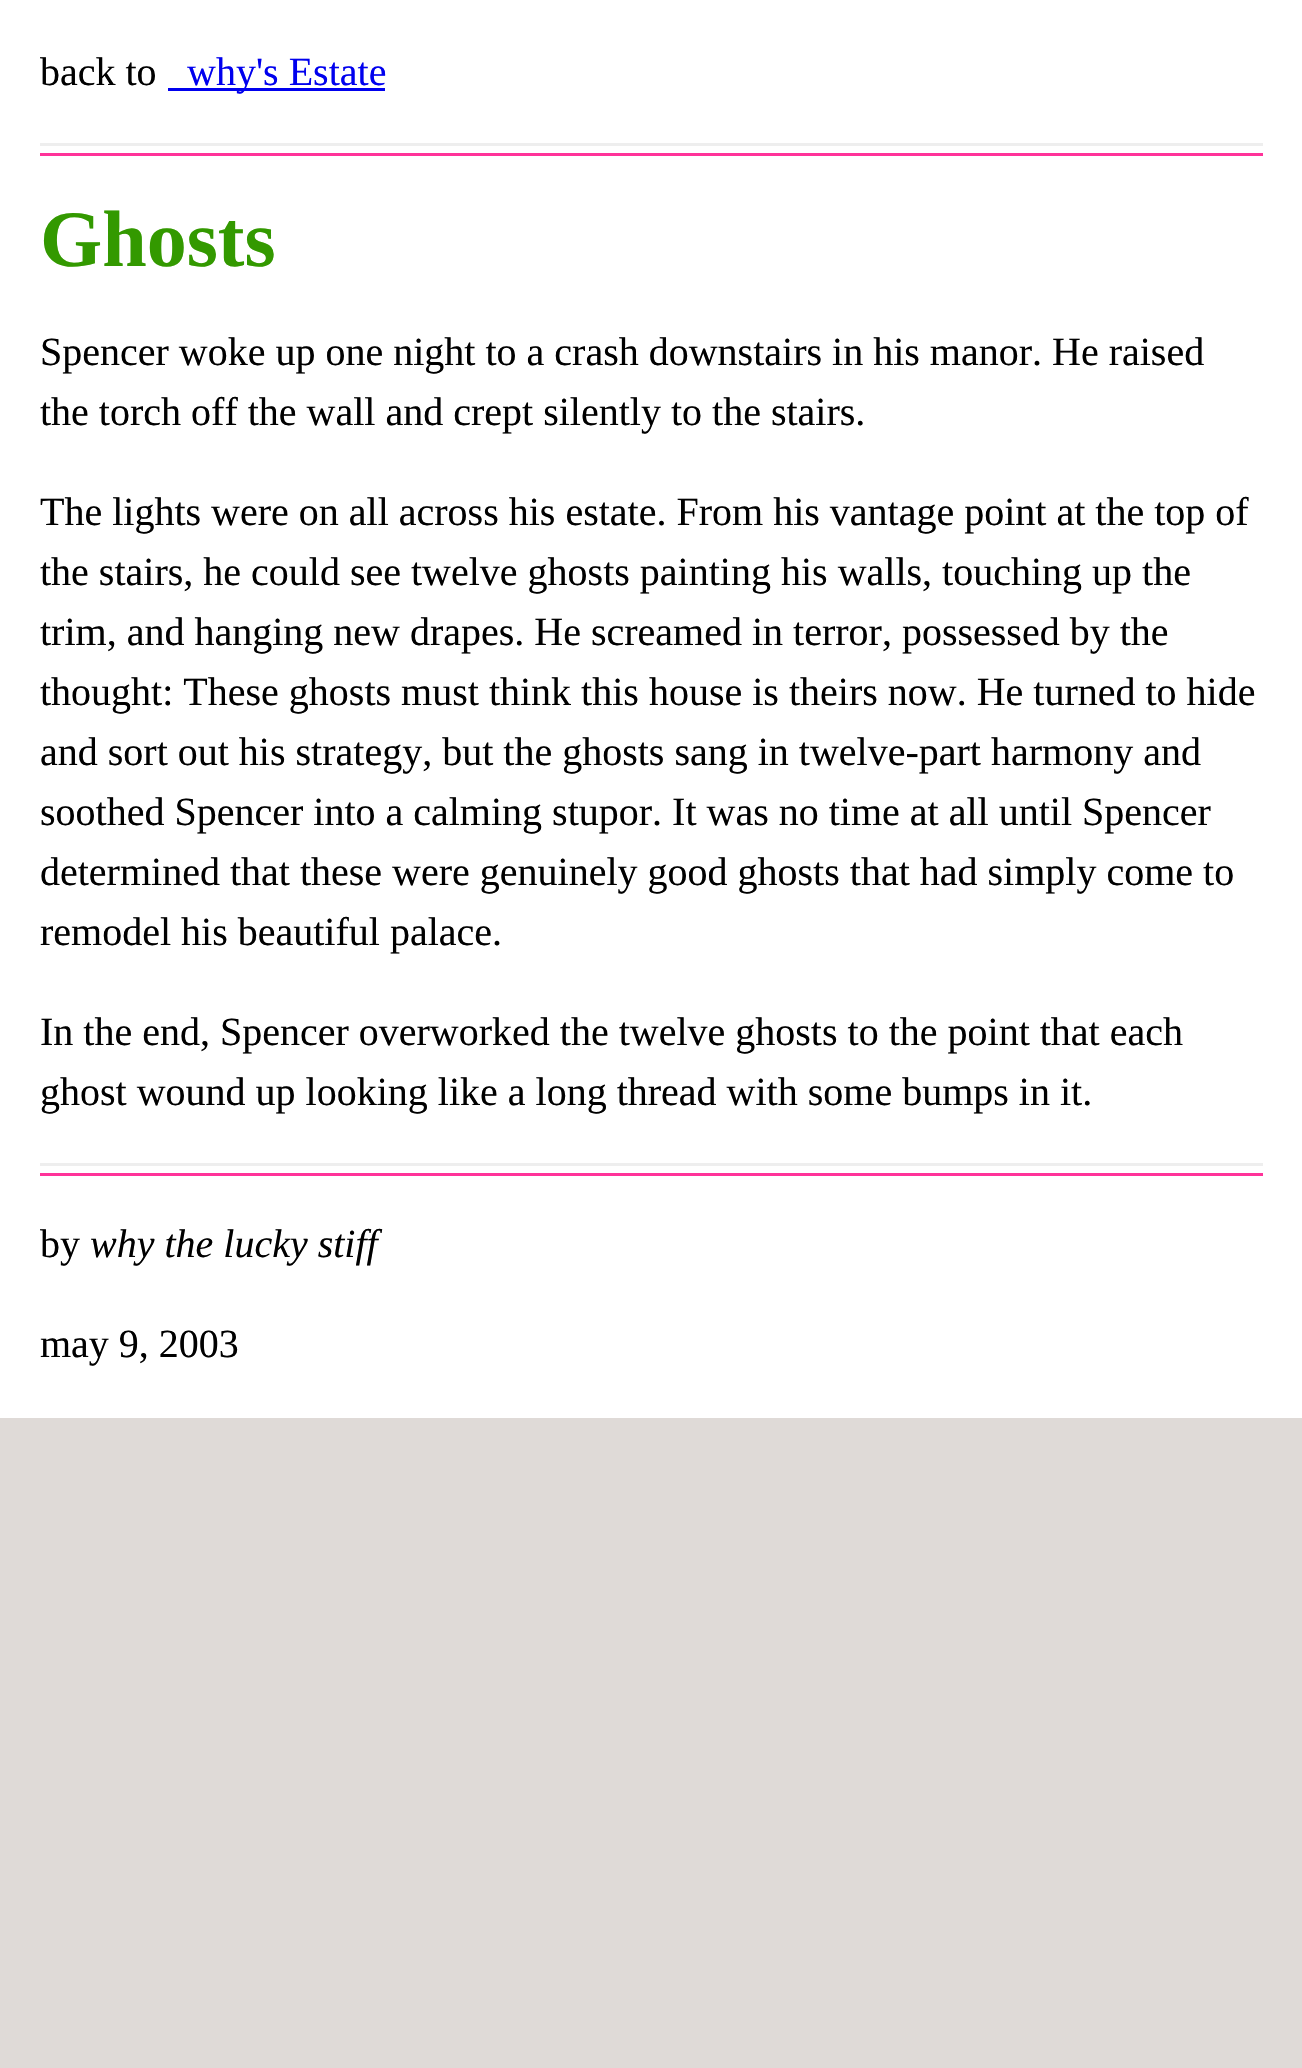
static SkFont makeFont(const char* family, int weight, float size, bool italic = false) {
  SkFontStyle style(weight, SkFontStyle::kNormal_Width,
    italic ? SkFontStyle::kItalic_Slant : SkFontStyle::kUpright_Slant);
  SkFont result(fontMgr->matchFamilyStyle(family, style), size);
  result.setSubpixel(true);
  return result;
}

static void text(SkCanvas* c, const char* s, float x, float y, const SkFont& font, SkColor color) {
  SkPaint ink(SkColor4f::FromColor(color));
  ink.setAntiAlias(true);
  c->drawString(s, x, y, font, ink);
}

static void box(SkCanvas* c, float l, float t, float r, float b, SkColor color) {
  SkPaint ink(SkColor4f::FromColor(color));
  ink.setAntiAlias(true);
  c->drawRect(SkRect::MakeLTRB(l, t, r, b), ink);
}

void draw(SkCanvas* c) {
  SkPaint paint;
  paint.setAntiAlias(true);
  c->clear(0xffdfdad7);
  box(c, 0, 0, 1302, 1418, 0xffffffff);
  SkFont face1 = makeFont("Liberation Serif", 400, 40);
  text(c, "back to", 40, 85, face1, 0xff000000);
  box(c, 168, 88, 385, 91, 0xff0000ee);
  text(c, "why's Estate", 187, 85, face1, 0xff0000ee);
  box(c, 40, 143, 1263, 146, 0xffeeeeee);
  box(c, 40, 153, 1263, 156, 0xffff3399);
  SkFont face2 = makeFont("Liberation Serif", 700, 80);
  text(c, "Ghosts", 40, 266, face2, 0xff339900);
  text(c, "Spencer woke up one night to a crash downstairs in his manor. He raised", 40, 365, face1, 0xff000000);
  text(c, "the torch off the wall and crept silently to the stairs.", 40, 425, face1, 0xff000000);
  text(c, "The lights were on all across his estate. From his vantage point at the top of", 40, 525, face1, 0xff000000);
  text(c, "the stairs, he could see twelve ghosts painting his walls, touching up the", 40, 585, face1, 0xff000000);
  text(c, "trim, and hanging new drapes. He screamed in terror, possessed by the", 40, 645, face1, 0xff000000);
  text(c, "thought: These ghosts must think this house is theirs now. He turned to hide", 40, 705, face1, 0xff000000);
  text(c, "and sort out his strategy, but the ghosts sang in twelve-part harmony and", 40, 765, face1, 0xff000000);
  text(c, "soothed Spencer into a calming stupor. It was no time at all until Spencer", 40, 825, face1, 0xff000000);
  text(c, "determined that these were genuinely good ghosts that had simply come to", 40, 885, face1, 0xff000000);
  text(c, "remodel his beautiful palace.", 40, 945, face1, 0xff000000);
  text(c, "In the end, Spencer overworked the twelve ghosts to the point that each", 40, 1045, face1, 0xff000000);
  text(c, "ghost wound up looking like a long thread with some bumps in it.", 40, 1105, face1, 0xff000000);
  box(c, 40, 1163, 1263, 1166, 0xffeeeeee);
  box(c, 40, 1173, 1263, 1176, 0xffff3399);
  text(c, "by", 40, 1257, face1, 0xff000000);
  SkFont face3 = makeFont("Liberation Serif", 400, 40, true);
  text(c, "why the lucky stiff", 90, 1257, face3, 0xff000000);
  text(c, "may 9, 2003", 40, 1357, face1, 0xff000000);
}
